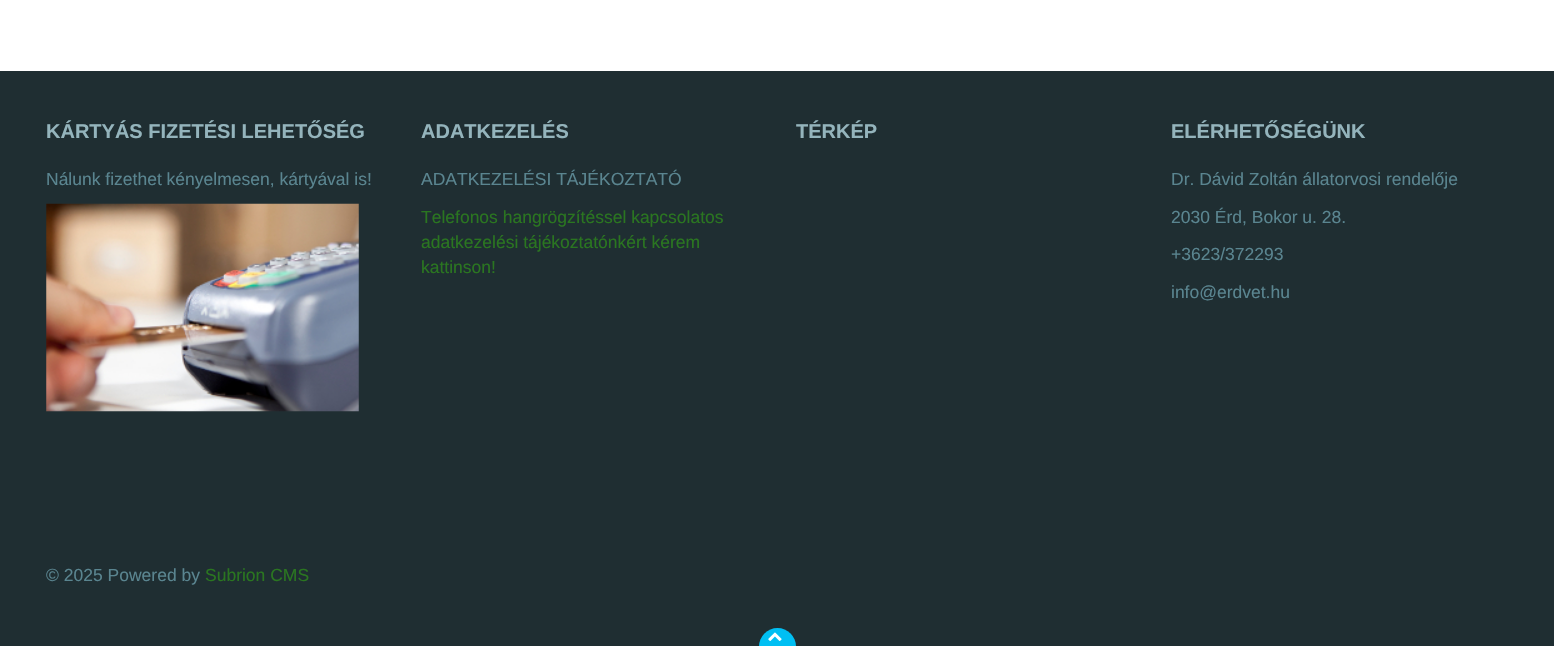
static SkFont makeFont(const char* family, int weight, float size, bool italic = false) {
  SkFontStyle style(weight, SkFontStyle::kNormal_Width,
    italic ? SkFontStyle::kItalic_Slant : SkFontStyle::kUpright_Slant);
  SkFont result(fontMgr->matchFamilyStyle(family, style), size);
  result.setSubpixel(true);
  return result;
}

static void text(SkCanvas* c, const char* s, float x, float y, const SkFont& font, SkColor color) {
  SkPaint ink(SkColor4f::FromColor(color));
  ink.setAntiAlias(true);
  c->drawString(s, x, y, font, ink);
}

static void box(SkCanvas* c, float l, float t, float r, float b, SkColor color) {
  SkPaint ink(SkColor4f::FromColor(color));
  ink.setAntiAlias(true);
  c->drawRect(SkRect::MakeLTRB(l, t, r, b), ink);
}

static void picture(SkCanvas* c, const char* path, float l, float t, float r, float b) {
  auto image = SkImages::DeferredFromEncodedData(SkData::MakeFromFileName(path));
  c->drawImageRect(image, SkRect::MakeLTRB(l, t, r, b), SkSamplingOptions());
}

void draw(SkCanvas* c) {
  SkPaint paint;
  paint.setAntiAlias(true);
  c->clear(0xffffffff);
  box(c, 0, 71, 1554, 646, 0xff1f2e32);
  SkFont face1 = makeFont("Liberation Sans", 700, 20);
  text(c, "KÁRTYÁS FIZETÉSI LEHETŐSÉG", 46, 138, face1, 0xff94b4bc);
  SkFont face2 = makeFont("Liberation Sans", 400, 17.5f);
  text(c, "Nálunk fizethet kényelmesen, kártyával is!", 46, 185, face2, 0xff5a8590);
  picture(c, "img_01.png", 46, 203, 359, 412);
  text(c, "ADATKEZELÉS", 421, 138, face1, 0xff94b4bc);
  text(c, "ADATKEZELÉSI TÁJÉKOZTATÓ", 421, 185, face2, 0xff5a8590);
  text(c, "Telefonos hangrögzítéssel kapcsolatos", 421, 223, face2, 0xff2a7620);
  text(c, "adatkezelési tájékoztatónkért kérem", 421, 248, face2, 0xff2a7620);
  text(c, "kattinson!", 421, 273, face2, 0xff2a7620);
  text(c, "TÉRKÉP", 796, 138, face1, 0xff94b4bc);
  text(c, "ELÉRHETŐSÉGÜNK", 1171, 138, face1, 0xff94b4bc);
  text(c, "Dr. Dávid Zoltán állatorvosi rendelője", 1171, 185, face2, 0xff5a8590);
  text(c, "2030 Érd, Bokor u. 28.", 1171, 223, face2, 0xff5a8590);
  text(c, "+3623/372293", 1171, 260, face2, 0xff5a8590);
  text(c, "info@erdvet.hu", 1171, 298, face2, 0xff5a8590);
  text(c, "© 2025 Powered by", 46, 581, face2, 0xff5a8590);
  text(c, "Subrion CMS", 205, 581, face2, 0xff2a7620);
  paint.setColor(0xff00bff3);
  c->drawCircle(777.5f, 646.5f, 18.5f, paint);
  picture(c, "img_02.png", 768, 632, 782, 641);
}
